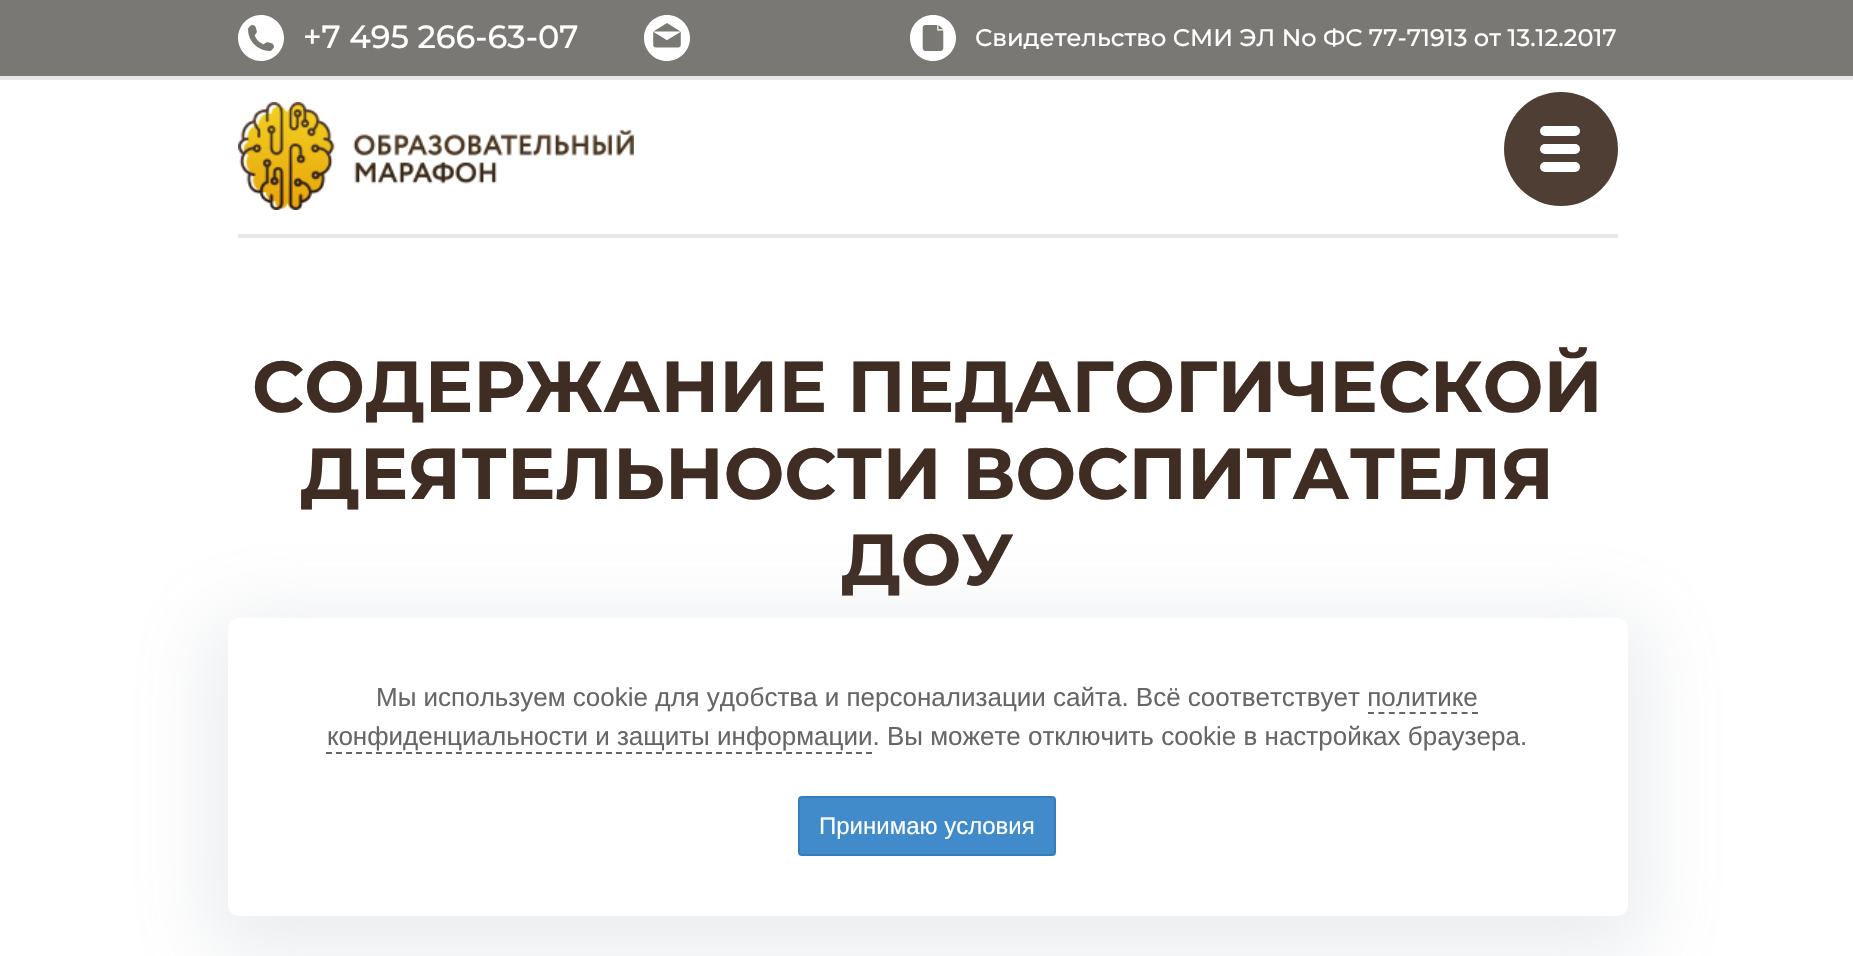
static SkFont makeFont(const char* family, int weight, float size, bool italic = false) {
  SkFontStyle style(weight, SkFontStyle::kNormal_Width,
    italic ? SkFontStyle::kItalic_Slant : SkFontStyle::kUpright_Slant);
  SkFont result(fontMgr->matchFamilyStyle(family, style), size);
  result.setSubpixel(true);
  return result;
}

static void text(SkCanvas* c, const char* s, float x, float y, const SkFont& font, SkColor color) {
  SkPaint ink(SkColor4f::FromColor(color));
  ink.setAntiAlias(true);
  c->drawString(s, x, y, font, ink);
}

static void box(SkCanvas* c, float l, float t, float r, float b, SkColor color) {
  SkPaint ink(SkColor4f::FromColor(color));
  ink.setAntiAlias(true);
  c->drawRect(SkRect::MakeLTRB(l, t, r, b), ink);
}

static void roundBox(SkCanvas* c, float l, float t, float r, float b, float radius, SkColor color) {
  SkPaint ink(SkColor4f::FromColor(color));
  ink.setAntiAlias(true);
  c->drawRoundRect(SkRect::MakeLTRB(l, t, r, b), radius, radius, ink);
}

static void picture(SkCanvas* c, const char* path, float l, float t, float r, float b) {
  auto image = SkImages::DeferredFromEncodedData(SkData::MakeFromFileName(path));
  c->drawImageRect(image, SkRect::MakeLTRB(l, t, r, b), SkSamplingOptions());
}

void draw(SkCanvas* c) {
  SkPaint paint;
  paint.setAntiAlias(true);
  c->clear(0xffffffff);
  box(c, 0, 0, 1853, 76, 0xff797874);
  box(c, 0, 76, 1853, 80, 0xffe8e8e8);
  picture(c, "img_01.png", 238, 15, 284, 61);
  SkFont face1 = makeFont("Montserrat", 500, 32);
  text(c, "+7 495 266-63-07", 303, 48, face1, 0xffffffff);
  picture(c, "img_02.png", 644, 15, 690, 61);
  picture(c, "img_03.png", 910, 15, 956, 61);
  SkFont face2 = makeFont("Montserrat", 500, 24);
  text(c, "Свидетельство СМИ ЭЛ No ФС 77-71913 от 13.12.2017", 975, 46, face2, 0xffffffff);
  picture(c, "img_04.png", 238, 102, 634, 210);
  paint.setColor(0xff4e3e34);
  c->drawCircle(1561, 149, 57, paint);
  roundBox(c, 1540, 144, 1580, 154, 5, 0xffffffff);
  roundBox(c, 1540, 126, 1580, 136, 5, 0xffffffff);
  roundBox(c, 1540, 162, 1580, 172, 5, 0xffffffff);
  box(c, 238, 234, 1618, 238, 0xffe8e8e8);
  SkFont face3 = makeFont("Montserrat", 700, 72);
  text(c, "СОДЕРЖАНИЕ ПЕДАГОГИЧЕСКОЙ", 252, 412, face3, 0xff3f2d24);
  text(c, "ДЕЯТЕЛЬНОСТИ ВОСПИТАТЕЛЯ", 300, 499, face3, 0xff3f2d24);
  text(c, "ДОУ", 841, 585, face3, 0xff3f2d24);
  paint.setColor(0x2e8c98a4);
  paint.setMaskFilter(SkMaskFilter::MakeBlur(kNormal_SkBlurStyle, 40));
  c->drawRoundRect(SkRect::MakeLTRB(208, 618, 1648, 956), 30, 30, paint);
  paint.setMaskFilter(nullptr);
  roundBox(c, 228, 618, 1628, 916, 10, 0xffffffff);
  SkFont face4 = makeFont("Liberation Sans", 400, 26);
  text(c, "Мы используем cookie для удобства и персонализации сайта. Всё соответствует политике", 376, 706, face4, 0xff666666);
  text(c, "конфиденциальности и защиты информации. Вы можете отключить cookie в настройках браузера.", 327, 745, face4, 0xff666666);
  paint.setStyle(SkPaint::kStroke_Style);
  paint.setStrokeWidth(2);
  paint.setColor(0xff666666);
  paint.setPathEffect(SkDashPathEffect::Make({{6, 4.4f}}, 0));
  c->drawPath(SkPathBuilder().moveTo(1368, 713).lineTo(1478, 713).detach(), paint);
  paint.setPathEffect(nullptr);
  paint.setPathEffect(SkDashPathEffect::Make({{6, 4}}, 0));
  c->drawPath(SkPathBuilder().moveTo(326, 753).lineTo(872, 753).detach(), paint);
  paint.setPathEffect(nullptr);
  paint.setStyle(SkPaint::kFill_Style);
  paint.setColor(0xff428bca);
  c->drawRoundRect(SkRect::MakeLTRB(799, 797, 1055, 855), 3, 3, paint);
  paint.setStyle(SkPaint::kStroke_Style);
  paint.setColor(0xff357ebd);
  c->drawRoundRect(SkRect::MakeLTRB(799, 797, 1055, 855), 3, 3, paint);
  SkFont face5 = makeFont("Liberation Sans", 400, 24);
  text(c, "Принимаю условия", 819, 834, face5, 0xffffffff);
}
